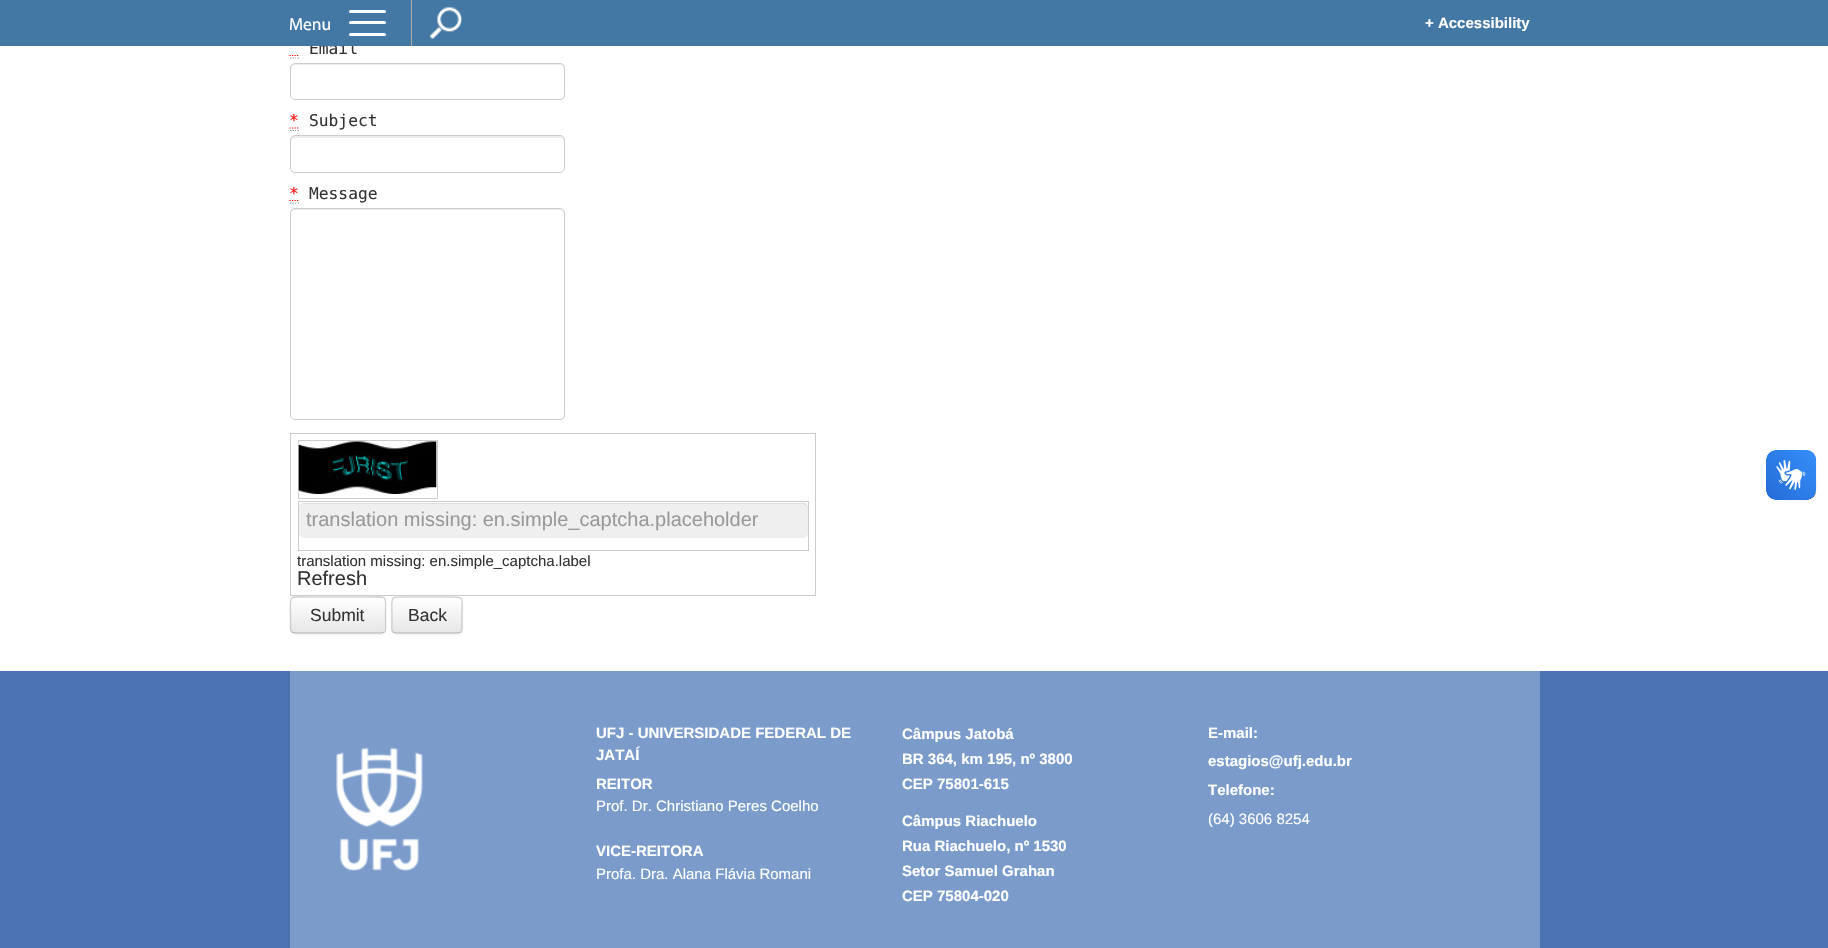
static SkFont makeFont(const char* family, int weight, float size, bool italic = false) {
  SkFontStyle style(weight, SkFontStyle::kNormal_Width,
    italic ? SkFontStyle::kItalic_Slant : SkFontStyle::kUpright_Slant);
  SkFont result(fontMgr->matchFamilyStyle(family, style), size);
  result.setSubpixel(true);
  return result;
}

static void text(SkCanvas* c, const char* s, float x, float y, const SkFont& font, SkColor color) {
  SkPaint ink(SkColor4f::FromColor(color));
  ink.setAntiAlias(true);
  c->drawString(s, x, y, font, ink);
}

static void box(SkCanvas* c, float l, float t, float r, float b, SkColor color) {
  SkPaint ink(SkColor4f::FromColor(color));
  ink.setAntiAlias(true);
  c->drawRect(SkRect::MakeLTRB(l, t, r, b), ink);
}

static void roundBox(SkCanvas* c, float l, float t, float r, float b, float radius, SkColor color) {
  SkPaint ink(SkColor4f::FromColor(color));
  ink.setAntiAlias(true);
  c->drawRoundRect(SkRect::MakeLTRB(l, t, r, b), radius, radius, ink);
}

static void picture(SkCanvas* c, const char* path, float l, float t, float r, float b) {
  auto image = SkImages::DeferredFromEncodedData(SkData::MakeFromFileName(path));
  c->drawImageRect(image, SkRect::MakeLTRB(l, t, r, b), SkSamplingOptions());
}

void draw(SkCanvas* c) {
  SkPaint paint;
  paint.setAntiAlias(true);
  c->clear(0xffffffff);
  SkFont face1 = makeFont("DejaVu Sans Mono", 400, 16.25f);
  text(c, "Email", 309, 54, face1, 0xff333333);
  box(c, 0, 0, 1828, 46, 0xff4478a4);
  box(c, 411, 0, 412, 46, 0xffaaaaaa);
  SkFont face2 = makeFont("Myriad", 400, 17.5f);
  text(c, "Menu", 289, 30, face2, 0xffffffff);
  roundBox(c, 349, 21, 386, 24, 1.5f, 0xffffffff);
  roundBox(c, 349, 10, 386, 13, 1.5f, 0xffffffff);
  roundBox(c, 349, 33, 386, 36, 1.5f, 0xffffffff);
  picture(c, "img_01.png", 430, 7, 462, 39);
  SkFont face3 = makeFont("Liberation Sans", 700, 15);
  text(c, "+ Accessibility", 1425, 28, face3, 0xffffffff);
  paint.setStyle(SkPaint::kStroke_Style);
  paint.setStrokeWidth(1.2f);
  paint.setColor(0xffff0000);
  paint.setPathEffect(SkDashPathEffect::Make({{1.25f, 1.25f}}, 0));
  c->drawPath(SkPathBuilder().moveTo(289.5f, 55.5f).lineTo(299, 55.5f).detach(), paint);
  paint.setPathEffect(nullptr);
  paint.setColor(0xff999999);
  c->drawPath(SkPathBuilder().moveTo(290, 58).lineTo(291.5f, 58).moveTo(292.5f, 58).lineTo(294, 58).moveTo(295, 58).lineTo(296, 58).moveTo(297.5f, 58).lineTo(299, 58).detach(), paint);
  paint.setStyle(SkPaint::kFill_Style);
  paint.setColor(0xffececec);
  c->drawPath(SkPathBuilder().moveTo(295, 65).lineTo(560, 65).cubicTo(562, 65, 564, 67, 564, 69).cubicTo(564, 66, 563, 64, 560, 64).lineTo(295, 64).cubicTo(292, 64, 291, 66, 291, 69).cubicTo(291, 67, 293, 65, 295, 65).close().detach(), paint);
  paint.setStyle(SkPaint::kStroke_Style);
  paint.setStrokeWidth(1);
  paint.setColor(0xffcccccc);
  c->drawRoundRect(SkRect::MakeLTRB(290.5f, 63.5f, 564.5f, 99.5f), 4.5f, 4.5f, paint);
  text(c, "*", 289, 126, face1, 0xffff0000);
  paint.setStrokeWidth(1.2f);
  paint.setColor(0xff999999);
  c->drawPath(SkPathBuilder().moveTo(290, 130.5f).lineTo(291.5f, 130.5f).moveTo(292.5f, 130.5f).lineTo(294, 130.5f).moveTo(295, 130.5f).lineTo(296, 130.5f).moveTo(297.5f, 130.5f).lineTo(299, 130.5f).detach(), paint);
  paint.setColor(0xffff0000);
  paint.setPathEffect(SkDashPathEffect::Make({{1.25f, 1.25f}}, 0));
  c->drawPath(SkPathBuilder().moveTo(289.5f, 128).lineTo(299, 128).detach(), paint);
  paint.setPathEffect(nullptr);
  text(c, "Subject", 309, 126, face1, 0xff333333);
  paint.setStyle(SkPaint::kFill_Style);
  paint.setColor(0xffececec);
  c->drawPath(SkPathBuilder().moveTo(295, 138).lineTo(561, 138).lineTo(564, 140).lineTo(564, 141).cubicTo(564, 138, 563, 136, 560, 136).lineTo(295, 136).cubicTo(292, 136, 291, 138, 291, 141).cubicTo(291, 139, 293, 138, 295, 138).close().detach(), paint);
  paint.setStyle(SkPaint::kStroke_Style);
  paint.setStrokeWidth(1);
  paint.setColor(0xffcccccc);
  c->drawRoundRect(SkRect::MakeLTRB(290.5f, 135.5f, 564.5f, 172.5f), 4.5f, 4.5f, paint);
  text(c, "*", 289, 199, face1, 0xffff0000);
  paint.setStrokeWidth(1.2f);
  paint.setColor(0xff999999);
  c->drawPath(SkPathBuilder().moveTo(290, 203).lineTo(291.5f, 203).moveTo(292.5f, 203).lineTo(294, 203).moveTo(295, 203).lineTo(296, 203).moveTo(297.5f, 203).lineTo(299, 203).detach(), paint);
  paint.setColor(0xffff0000);
  paint.setPathEffect(SkDashPathEffect::Make({{1.25f, 1.25f}}, 0));
  c->drawPath(SkPathBuilder().moveTo(289.5f, 200.5f).lineTo(299, 200.5f).detach(), paint);
  paint.setPathEffect(nullptr);
  text(c, "Message", 309, 199, face1, 0xff333333);
  paint.setStyle(SkPaint::kFill_Style);
  paint.setColor(0xffececec);
  c->drawPath(SkPathBuilder().moveTo(295, 210).lineTo(560, 210).cubicTo(562, 210, 564, 212, 564, 214).cubicTo(564, 211, 563, 209, 560, 209).lineTo(295, 209).cubicTo(292, 209, 291, 211, 291, 214).cubicTo(291, 212, 293, 210, 295, 210).close().detach(), paint);
  paint.setStyle(SkPaint::kStroke_Style);
  paint.setStrokeWidth(1);
  paint.setColor(0xffcccccc);
  c->drawRoundRect(SkRect::MakeLTRB(290.5f, 208.5f, 564.5f, 419.5f), 4.5f, 4.5f, paint);
  c->drawRect(SkRect::MakeLTRB(290.5f, 433.5f, 815.5f, 595.5f), paint);
  c->drawRect(SkRect::MakeLTRB(298.5f, 440.5f, 437.5f, 498.5f), paint);
  picture(c, "img_02.png", 298, 441, 437, 494);
  c->drawRect(SkRect::MakeLTRB(298.5f, 501.5f, 808.5f, 550.5f), paint);
  roundBox(c, 299, 503, 808, 538, 5, 0xffefefef);
  paint.setStyle(SkPaint::kFill_Style);
  paint.setColor(0x12000000);
  c->drawPath(SkPathBuilder().moveTo(304, 504).lineTo(802, 504).cubicTo(805, 504, 808, 506, 808, 509).lineTo(808, 508).cubicTo(808, 505, 806, 503, 803, 503).lineTo(304, 503).cubicTo(301, 503, 299, 505, 299, 508).lineTo(299, 509).cubicTo(299, 506, 301, 504, 304, 504).close().detach(), paint);
  SkFont face4 = makeFont("Liberation Sans", 400, 20);
  text(c, "translation missing: en.simple_captcha.placeholder", 306, 526, face4, 0xff999999);
  SkFont face5 = makeFont("Liberation Sans", 400, 15);
  text(c, "translation missing: en.simple_captcha.label", 297, 566, face5, 0xff333333);
  text(c, "Refresh", 297, 585, face4, 0xff333333);
  paint.setColor(0x0d000000);
  paint.setMaskFilter(SkMaskFilter::MakeBlur(kNormal_SkBlurStyle, 1));
  c->drawRoundRect(SkRect::MakeLTRB(290, 598, 386, 635), 5, 5, paint);
  paint.setMaskFilter(nullptr);
  roundBox(c, 290, 596, 386, 634, 5, 0xfff5f5f5);
  c->save();
  c->clipPath(SkPathBuilder().moveTo(295, 596).lineTo(381, 596).cubicTo(384, 596, 386, 598, 386, 601).lineTo(386, 629).cubicTo(386, 632, 384, 634, 381, 634).lineTo(295, 634).cubicTo(292, 634, 290, 632, 290, 629).lineTo(290, 601).cubicTo(290, 598, 292, 596, 295, 596).close().detach(), true);
  {
    const SkColor colors[] = {0xffffffff, 0xffe6e6e6};
    const float stops[] = {0, 1};
    const SkPoint ends[] = {{338, 598}, {338, 633}};
    paint.setShader(SkGradientShader::MakeLinear(ends, colors, stops, 2, SkTileMode::kClamp));
    paint.setAlpha(255);
  }
  c->drawRect(SkRect::MakeLTRB(290, 598, 386, 633), paint);
  c->restore();
  paint.setStyle(SkPaint::kStroke_Style);
  paint.setStrokeWidth(1.2f);
  paint.setShader(nullptr);
  paint.setColor(0xffb3b3b3);
  c->drawPath(SkPathBuilder().moveTo(384.5f, 632).lineTo(381.5f, 633).lineTo(294.5f, 633).lineTo(292, 632).detach(), paint);
  paint.setColor(0xffcccccc);
  c->drawPath(SkPathBuilder().moveTo(292, 632).cubicTo(290, 630, 290.5f, 626.5f, 290.5f, 624).lineTo(290.5f, 615).cubicTo(290.5f, 594, 287.5f, 597, 309.5f, 597).lineTo(367, 597).cubicTo(388.5f, 597, 385.5f, 594, 385.5f, 615).lineTo(385.5f, 624).cubicTo(385.5f, 626.5f, 386.5f, 630, 384.5f, 632).detach(), paint);
  SkFont face6 = makeFont("Liberation Sans", 400, 17.5f);
  text(c, "Submit", 310, 621, face6, 0xff333333);
  paint.setStyle(SkPaint::kFill_Style);
  paint.setColor(0x0d000000);
  paint.setMaskFilter(SkMaskFilter::MakeBlur(kNormal_SkBlurStyle, 1));
  c->drawRoundRect(SkRect::MakeLTRB(391, 598, 463, 635), 5, 5, paint);
  paint.setMaskFilter(nullptr);
  roundBox(c, 391, 596, 463, 634, 5, 0xfff5f5f5);
  c->save();
  c->clipPath(SkPathBuilder().moveTo(396, 596).lineTo(458, 596).cubicTo(461, 596, 463, 598, 463, 601).lineTo(463, 629).cubicTo(463, 632, 461, 634, 458, 634).lineTo(396, 634).cubicTo(393, 634, 391, 632, 391, 629).lineTo(391, 601).cubicTo(391, 598, 393, 596, 396, 596).close().detach(), true);
  {
    const SkColor colors[] = {0xffffffff, 0xffe6e6e6};
    const float stops[] = {0, 1};
    const SkPoint ends[] = {{427, 598}, {427, 633}};
    paint.setShader(SkGradientShader::MakeLinear(ends, colors, stops, 2, SkTileMode::kClamp));
    paint.setAlpha(255);
  }
  c->drawRect(SkRect::MakeLTRB(391, 598, 463, 633), paint);
  c->restore();
  paint.setStyle(SkPaint::kStroke_Style);
  paint.setShader(nullptr);
  paint.setColor(0xffb3b3b3);
  c->drawPath(SkPathBuilder().moveTo(460.5f, 632).lineTo(458, 633).lineTo(396, 633).lineTo(393, 632).detach(), paint);
  paint.setColor(0xffcccccc);
  c->drawPath(SkPathBuilder().moveTo(393, 632).cubicTo(391, 630, 392, 626.5f, 392, 624).lineTo(392, 615).cubicTo(392, 596.5f, 388.5f, 597, 406.5f, 597).lineTo(447.5f, 597).cubicTo(465.5f, 597, 462, 596.5f, 462, 615).lineTo(462, 624).cubicTo(462, 626.5f, 462.5f, 630, 460.5f, 632).detach(), paint);
  text(c, "Back", 408, 621, face6, 0xff333333);
  picture(c, "img_03.png", 1766, 450, 1817, 500);
  picture(c, "img_04.png", 1766, 450, 1816, 500);
  box(c, 0, 671, 1828, 948, 0xff4b73b3);
  box(c, 290, 671, 1540, 948, 0xff7b9ccb);
  picture(c, "img_05.png", 336, 747, 423, 871);
  text(c, "UFJ - UNIVERSIDADE FEDERAL DE", 596, 738, face3, 0xffffffff);
  text(c, "JATAÍ", 596, 760, face3, 0xffffffff);
  text(c, "REITOR", 596, 789, face3, 0xffffffff);
  text(c, "Prof. Dr. Christiano Peres Coelho", 596, 811, face5, 0xffffffff);
  text(c, "VICE-REITORA", 596, 856, face3, 0xffffffff);
  text(c, "Profa. Dra. Alana Flávia Romani", 596, 879, face5, 0xffffffff);
  text(c, "Câmpus Jatobá", 902, 739, face3, 0xffffffff);
  text(c, "BR 364, km 195, nº 3800", 902, 764, face3, 0xffffffff);
  text(c, "CEP 75801-615", 902, 789, face3, 0xffffffff);
  text(c, "Câmpus Riachuelo", 902, 826, face3, 0xffffffff);
  text(c, "Rua Riachuelo, nº 1530", 902, 851, face3, 0xffffffff);
  text(c, "Setor Samuel Grahan", 902, 876, face3, 0xffffffff);
  text(c, "CEP 75804-020", 902, 901, face3, 0xffffffff);
  text(c, "E-mail:", 1208, 738, face3, 0xffffffff);
  text(c, "estagios@ufj.edu.br", 1208, 766, face3, 0xffffffff);
  text(c, "Telefone:", 1208, 795, face3, 0xffffffff);
  text(c, "(64) 3606 8254", 1208, 824, face5, 0xffffffff);
}
